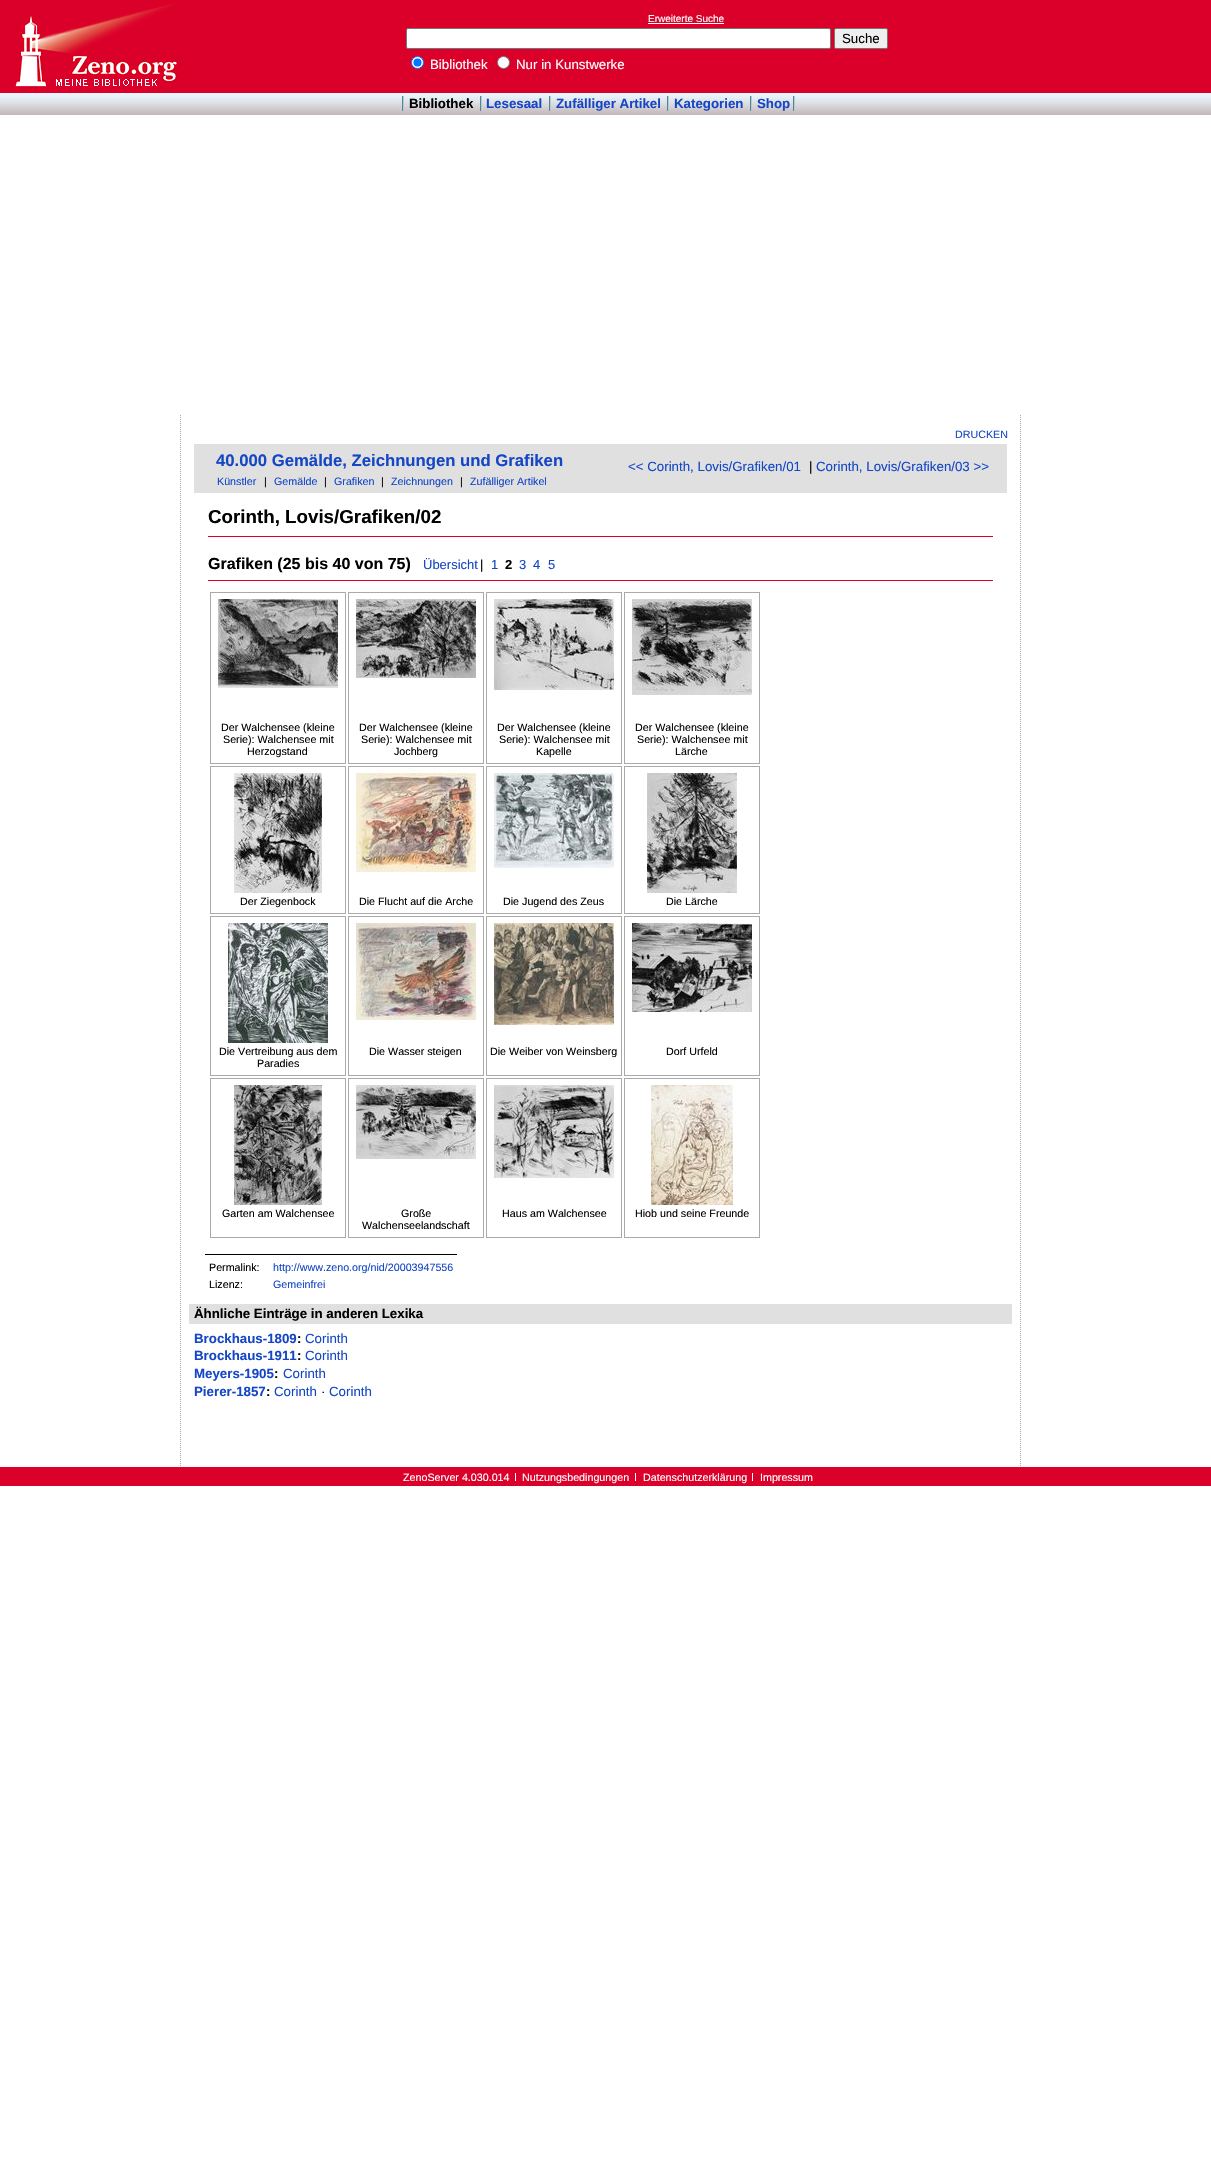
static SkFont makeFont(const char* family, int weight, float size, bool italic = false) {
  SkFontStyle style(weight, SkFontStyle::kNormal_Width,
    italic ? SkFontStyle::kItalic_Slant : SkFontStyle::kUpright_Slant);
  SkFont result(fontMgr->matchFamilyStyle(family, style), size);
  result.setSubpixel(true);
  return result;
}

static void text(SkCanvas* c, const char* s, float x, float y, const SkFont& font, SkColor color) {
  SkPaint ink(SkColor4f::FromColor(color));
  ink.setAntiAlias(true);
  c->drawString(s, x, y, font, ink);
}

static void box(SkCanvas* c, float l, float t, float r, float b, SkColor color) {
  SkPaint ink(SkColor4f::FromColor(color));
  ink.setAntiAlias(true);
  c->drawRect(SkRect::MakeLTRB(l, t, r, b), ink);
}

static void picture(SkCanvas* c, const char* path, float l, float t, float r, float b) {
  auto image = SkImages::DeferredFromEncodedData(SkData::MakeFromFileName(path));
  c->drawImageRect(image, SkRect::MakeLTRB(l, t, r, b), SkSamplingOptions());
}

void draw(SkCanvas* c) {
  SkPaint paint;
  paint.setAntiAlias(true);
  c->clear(0xffffffff);
  box(c, 0, 0, 1211, 93, 0xffdb0029);
  picture(c, "img_01.png", 14, 3, 178, 88);
  SkFont face1 = makeFont("Liberation Sans", 400, 10);
  text(c, "Erweiterte Suche", 648, 22, face1, 0xffffffff);
  box(c, 648, 23, 724, 24, 0xffffffff);
  paint.setColor(0xffffffff);
  c->drawRoundRect(SkRect::MakeLTRB(406.5f, 28.5f, 830.5f, 48.5f), 1.5f, 1.5f, paint);
  paint.setStyle(SkPaint::kStroke_Style);
  paint.setStrokeWidth(1);
  paint.setColor(0xff767676);
  c->drawRoundRect(SkRect::MakeLTRB(406.5f, 28.5f, 830.5f, 48.5f), 1.5f, 1.5f, paint);
  paint.setStyle(SkPaint::kFill_Style);
  paint.setColor(0xffefefef);
  c->drawRoundRect(SkRect::MakeLTRB(834.5f, 28.5f, 887.5f, 48.5f), 1.5f, 1.5f, paint);
  paint.setStyle(SkPaint::kStroke_Style);
  paint.setColor(0xff767676);
  c->drawRoundRect(SkRect::MakeLTRB(834.5f, 28.5f, 887.5f, 48.5f), 1.5f, 1.5f, paint);
  SkFont face2 = makeFont("Liberation Sans", 400, 13.3f);
  text(c, "Suche", 842, 43, face2, 0xff000000);
  paint.setStyle(SkPaint::kFill_Style);
  paint.setColor(0xffffffff);
  c->drawCircle(417.5f, 62.5f, 6, paint);
  paint.setStyle(SkPaint::kStroke_Style);
  paint.setColor(0xff0075ff);
  c->drawCircle(417.5f, 62.5f, 6, paint);
  paint.setStyle(SkPaint::kFill_Style);
  c->drawCircle(417.5f, 62.5f, 4, paint);
  text(c, "Bibliothek", 430, 69, face2, 0xffffffff);
  paint.setColor(0xffffffff);
  c->drawCircle(503.5f, 62.5f, 6, paint);
  paint.setStyle(SkPaint::kStroke_Style);
  paint.setColor(0xff767676);
  c->drawCircle(503.5f, 62.5f, 6, paint);
  text(c, "Nur in Kunstwerke", 516, 69, face2, 0xffffffff);
  picture(c, "img_02.png", 0, 93, 1211, 115);
  picture(c, "img_03.png", 402, 96, 404, 111);
  SkFont face3 = makeFont("Liberation Sans", 700, 13.3f);
  text(c, "Bibliothek", 409, 108, face3, 0xff000000);
  picture(c, "img_03.png", 480, 96, 482, 111);
  text(c, "Lesesaal", 486, 108, face3, 0xff1446c6);
  picture(c, "img_03.png", 549, 96, 551, 111);
  text(c, "Zufälliger Artikel", 556, 108, face3, 0xff1446c6);
  picture(c, "img_03.png", 667, 96, 669, 111);
  text(c, "Kategorien", 674, 108, face3, 0xff1446c6);
  picture(c, "img_03.png", 750, 96, 752, 111);
  text(c, "Shop", 757, 108, face3, 0xff1446c6);
  picture(c, "img_03.png", 793, 96, 795, 111);
  paint.setColor(0xffaaaaaa);
  paint.setPathEffect(SkDashPathEffect::Make({{1, 1}}, 0));
  c->drawPath(SkPathBuilder().moveTo(1020.5f, 415).lineTo(1020.5f, 1467).detach(), paint);
  paint.setPathEffect(nullptr);
  paint.setPathEffect(SkDashPathEffect::Make({{1, 1}}, 0));
  c->drawPath(SkPathBuilder().moveTo(180.5f, 415).lineTo(180.5f, 1467).detach(), paint);
  paint.setPathEffect(nullptr);
  SkFont face4 = makeFont("Liberation Sans", 400, 10.7f);
  text(c, "DRUCKEN", 955, 438, face4, 0xff1446c6);
  box(c, 194, 444, 1007, 493, 0xffe0e0e0);
  SkFont face5 = makeFont("Liberation Sans", 700, 16.7f);
  text(c, "40.000 Gemälde, Zeichnungen und Grafiken", 216, 466, face5, 0xff1446c6);
  text(c, "<< Corinth, Lovis/Grafiken/01", 628, 471, face2, 0xff1446c6);
  text(c, "|", 809, 471, face2, 0xff000000);
  text(c, "Corinth, Lovis/Grafiken/03 >>", 816, 471, face2, 0xff1446c6);
  text(c, "Künstler", 217, 485, face4, 0xff1446c6);
  text(c, "|", 264, 485, face4, 0xff000000);
  text(c, "Gemälde", 274, 485, face4, 0xff1446c6);
  text(c, "|", 324, 485, face4, 0xff000000);
  text(c, "Grafiken", 334, 485, face4, 0xff1446c6);
  text(c, "|", 381, 485, face4, 0xff000000);
  text(c, "Zeichnungen", 391, 485, face4, 0xff1446c6);
  text(c, "|", 460, 485, face4, 0xff000000);
  text(c, "Zufälliger Artikel", 470, 485, face4, 0xff1446c6);
  box(c, 208, 536, 993, 537, 0xffdb0029);
  SkFont face6 = makeFont("Liberation Sans", 700, 18.75f);
  text(c, "Corinth, Lovis/Grafiken/02", 208, 523, face6, 0xff000000);
  box(c, 208, 580, 993, 581, 0xffdb0029);
  SkFont face7 = makeFont("Liberation Sans", 700, 16);
  text(c, "Grafiken (25 bis 40 von 75)", 208, 569, face7, 0xff000000);
  SkFont face8 = makeFont("Liberation Sans", 400, 13);
  text(c, "Übersicht", 423, 569, face8, 0xff1446c6);
  text(c, "|", 480, 569, face8, 0xff000000);
  text(c, "1", 491, 569, face8, 0xff1446c6);
  SkFont face9 = makeFont("Liberation Sans", 700, 13);
  text(c, "2", 505, 569, face9, 0xff000000);
  text(c, "3", 519, 569, face8, 0xff1446c6);
  text(c, "4", 533, 569, face8, 0xff1446c6);
  text(c, "5", 548, 569, face8, 0xff1446c6);
  c->drawRect(SkRect::MakeLTRB(210.5f, 592.5f, 345.5f, 763.5f), paint);
  picture(c, "img_04.png", 218, 599, 338, 688);
  text(c, "Der Walchensee (kleine", 221, 731, face4, 0xff000000);
  text(c, "Serie): Walchensee mit", 223, 743, face4, 0xff000000);
  text(c, "Herzogstand", 247, 755, face4, 0xff000000);
  c->drawRect(SkRect::MakeLTRB(348.5f, 592.5f, 483.5f, 763.5f), paint);
  picture(c, "img_05.png", 356, 599, 476, 678);
  text(c, "Der Walchensee (kleine", 359, 731, face4, 0xff000000);
  text(c, "Serie): Walchensee mit", 361, 743, face4, 0xff000000);
  text(c, "Jochberg", 394, 755, face4, 0xff000000);
  c->drawRect(SkRect::MakeLTRB(486.5f, 592.5f, 621.5f, 763.5f), paint);
  picture(c, "img_06.png", 494, 599, 614, 690);
  text(c, "Der Walchensee (kleine", 497, 731, face4, 0xff000000);
  text(c, "Serie): Walchensee mit", 499, 743, face4, 0xff000000);
  text(c, "Kapelle", 536, 755, face4, 0xff000000);
  c->drawRect(SkRect::MakeLTRB(624.5f, 592.5f, 759.5f, 763.5f), paint);
  picture(c, "img_07.png", 632, 599, 752, 695);
  text(c, "Der Walchensee (kleine", 635, 731, face4, 0xff000000);
  text(c, "Serie): Walchensee mit", 637, 743, face4, 0xff000000);
  text(c, "Lärche", 675, 755, face4, 0xff000000);
  c->drawRect(SkRect::MakeLTRB(210.5f, 766.5f, 345.5f, 913.5f), paint);
  picture(c, "img_08.png", 234, 773, 322, 893);
  text(c, "Der Ziegenbock", 240, 905, face4, 0xff000000);
  c->drawRect(SkRect::MakeLTRB(348.5f, 766.5f, 483.5f, 913.5f), paint);
  picture(c, "img_09.png", 356, 773, 476, 872);
  text(c, "Die Flucht auf die Arche", 359, 905, face4, 0xff000000);
  c->drawRect(SkRect::MakeLTRB(486.5f, 766.5f, 621.5f, 913.5f), paint);
  picture(c, "img_10.png", 494, 773, 614, 868);
  text(c, "Die Jugend des Zeus", 503, 905, face4, 0xff000000);
  c->drawRect(SkRect::MakeLTRB(624.5f, 766.5f, 759.5f, 913.5f), paint);
  picture(c, "img_11.png", 647, 773, 737, 893);
  text(c, "Die Lärche", 666, 905, face4, 0xff000000);
  c->drawRect(SkRect::MakeLTRB(210.5f, 916.5f, 345.5f, 1075.5f), paint);
  picture(c, "img_12.png", 228, 923, 328, 1043);
  text(c, "Die Vertreibung aus dem", 219, 1055, face4, 0xff000000);
  text(c, "Paradies", 257, 1067, face4, 0xff000000);
  c->drawRect(SkRect::MakeLTRB(348.5f, 916.5f, 483.5f, 1075.5f), paint);
  picture(c, "img_13.png", 356, 923, 476, 1020);
  text(c, "Die Wasser steigen", 369, 1055, face4, 0xff000000);
  c->drawRect(SkRect::MakeLTRB(486.5f, 916.5f, 621.5f, 1075.5f), paint);
  picture(c, "img_14.png", 494, 923, 614, 1025);
  text(c, "Die Weiber von Weinsberg", 490, 1055, face4, 0xff000000);
  c->drawRect(SkRect::MakeLTRB(624.5f, 916.5f, 759.5f, 1075.5f), paint);
  picture(c, "img_15.png", 632, 923, 752, 1012);
  text(c, "Dorf Urfeld", 666, 1055, face4, 0xff000000);
  c->drawRect(SkRect::MakeLTRB(210.5f, 1078.5f, 345.5f, 1237.5f), paint);
  picture(c, "img_16.png", 234, 1085, 322, 1205);
  text(c, "Garten am Walchensee", 222, 1217, face4, 0xff000000);
  c->drawRect(SkRect::MakeLTRB(348.5f, 1078.5f, 483.5f, 1237.5f), paint);
  picture(c, "img_17.png", 356, 1085, 476, 1159);
  text(c, "Große", 401, 1217, face4, 0xff000000);
  text(c, "Walchenseelandschaft", 362, 1229, face4, 0xff000000);
  c->drawRect(SkRect::MakeLTRB(486.5f, 1078.5f, 621.5f, 1237.5f), paint);
  picture(c, "img_18.png", 494, 1085, 614, 1178);
  text(c, "Haus am Walchensee", 502, 1217, face4, 0xff000000);
  c->drawRect(SkRect::MakeLTRB(624.5f, 1078.5f, 759.5f, 1237.5f), paint);
  picture(c, "img_19.png", 651, 1085, 733, 1205);
  text(c, "Hiob und seine Freunde", 635, 1217, face4, 0xff000000);
  box(c, 205, 1254, 457, 1255, 0xff000000);
  text(c, "Permalink:", 209, 1271, face4, 0xff000000);
  text(c, "http://www.zeno.org/nid/20003947556", 273, 1271, face4, 0xff1446c6);
  text(c, "Lizenz:", 209, 1288, face4, 0xff000000);
  text(c, "Gemeinfrei", 273, 1288, face4, 0xff1446c6);
  box(c, 189, 1304, 1012, 1324, 0xffe0e0e0);
  text(c, "Ähnliche Einträge in anderen Lexika", 194, 1318, face3, 0xff000000);
  text(c, "Brockhaus-1809", 194, 1343, face3, 0xff1446c6);
  text(c, ":", 297, 1343, face3, 0xff000000);
  text(c, "Corinth", 305, 1343, face2, 0xff1446c6);
  text(c, "Brockhaus-1911", 194, 1360, face3, 0xff1446c6);
  text(c, ":", 297, 1360, face3, 0xff000000);
  text(c, "Corinth", 305, 1360, face2, 0xff1446c6);
  text(c, "Meyers-1905", 194, 1378, face3, 0xff1446c6);
  text(c, ":", 274, 1378, face3, 0xff000000);
  text(c, "Corinth", 283, 1378, face2, 0xff1446c6);
  text(c, "Pierer-1857", 194, 1396, face3, 0xff1446c6);
  text(c, ":", 266, 1396, face3, 0xff000000);
  text(c, "Corinth", 274, 1396, face2, 0xff1446c6);
  text(c, "·", 321, 1396, face2, 0xff000000);
  text(c, "Corinth", 329, 1396, face2, 0xff1446c6);
  box(c, 0, 1467, 1211, 1486, 0xffdb0029);
  text(c, "ZenoServer 4.030.014", 403, 1481, face4, 0xffffffff);
  text(c, "Nutzungsbedingungen", 522, 1481, face4, 0xffffffff);
  box(c, 515, 1473, 516, 1481, 0xffffffff);
  text(c, "Datenschutzerklärung", 643, 1481, face4, 0xffffffff);
  box(c, 635, 1473, 636, 1481, 0xffffffff);
  text(c, "Impressum", 760, 1481, face4, 0xffffffff);
  box(c, 752, 1473, 753, 1481, 0xffffffff);
}
